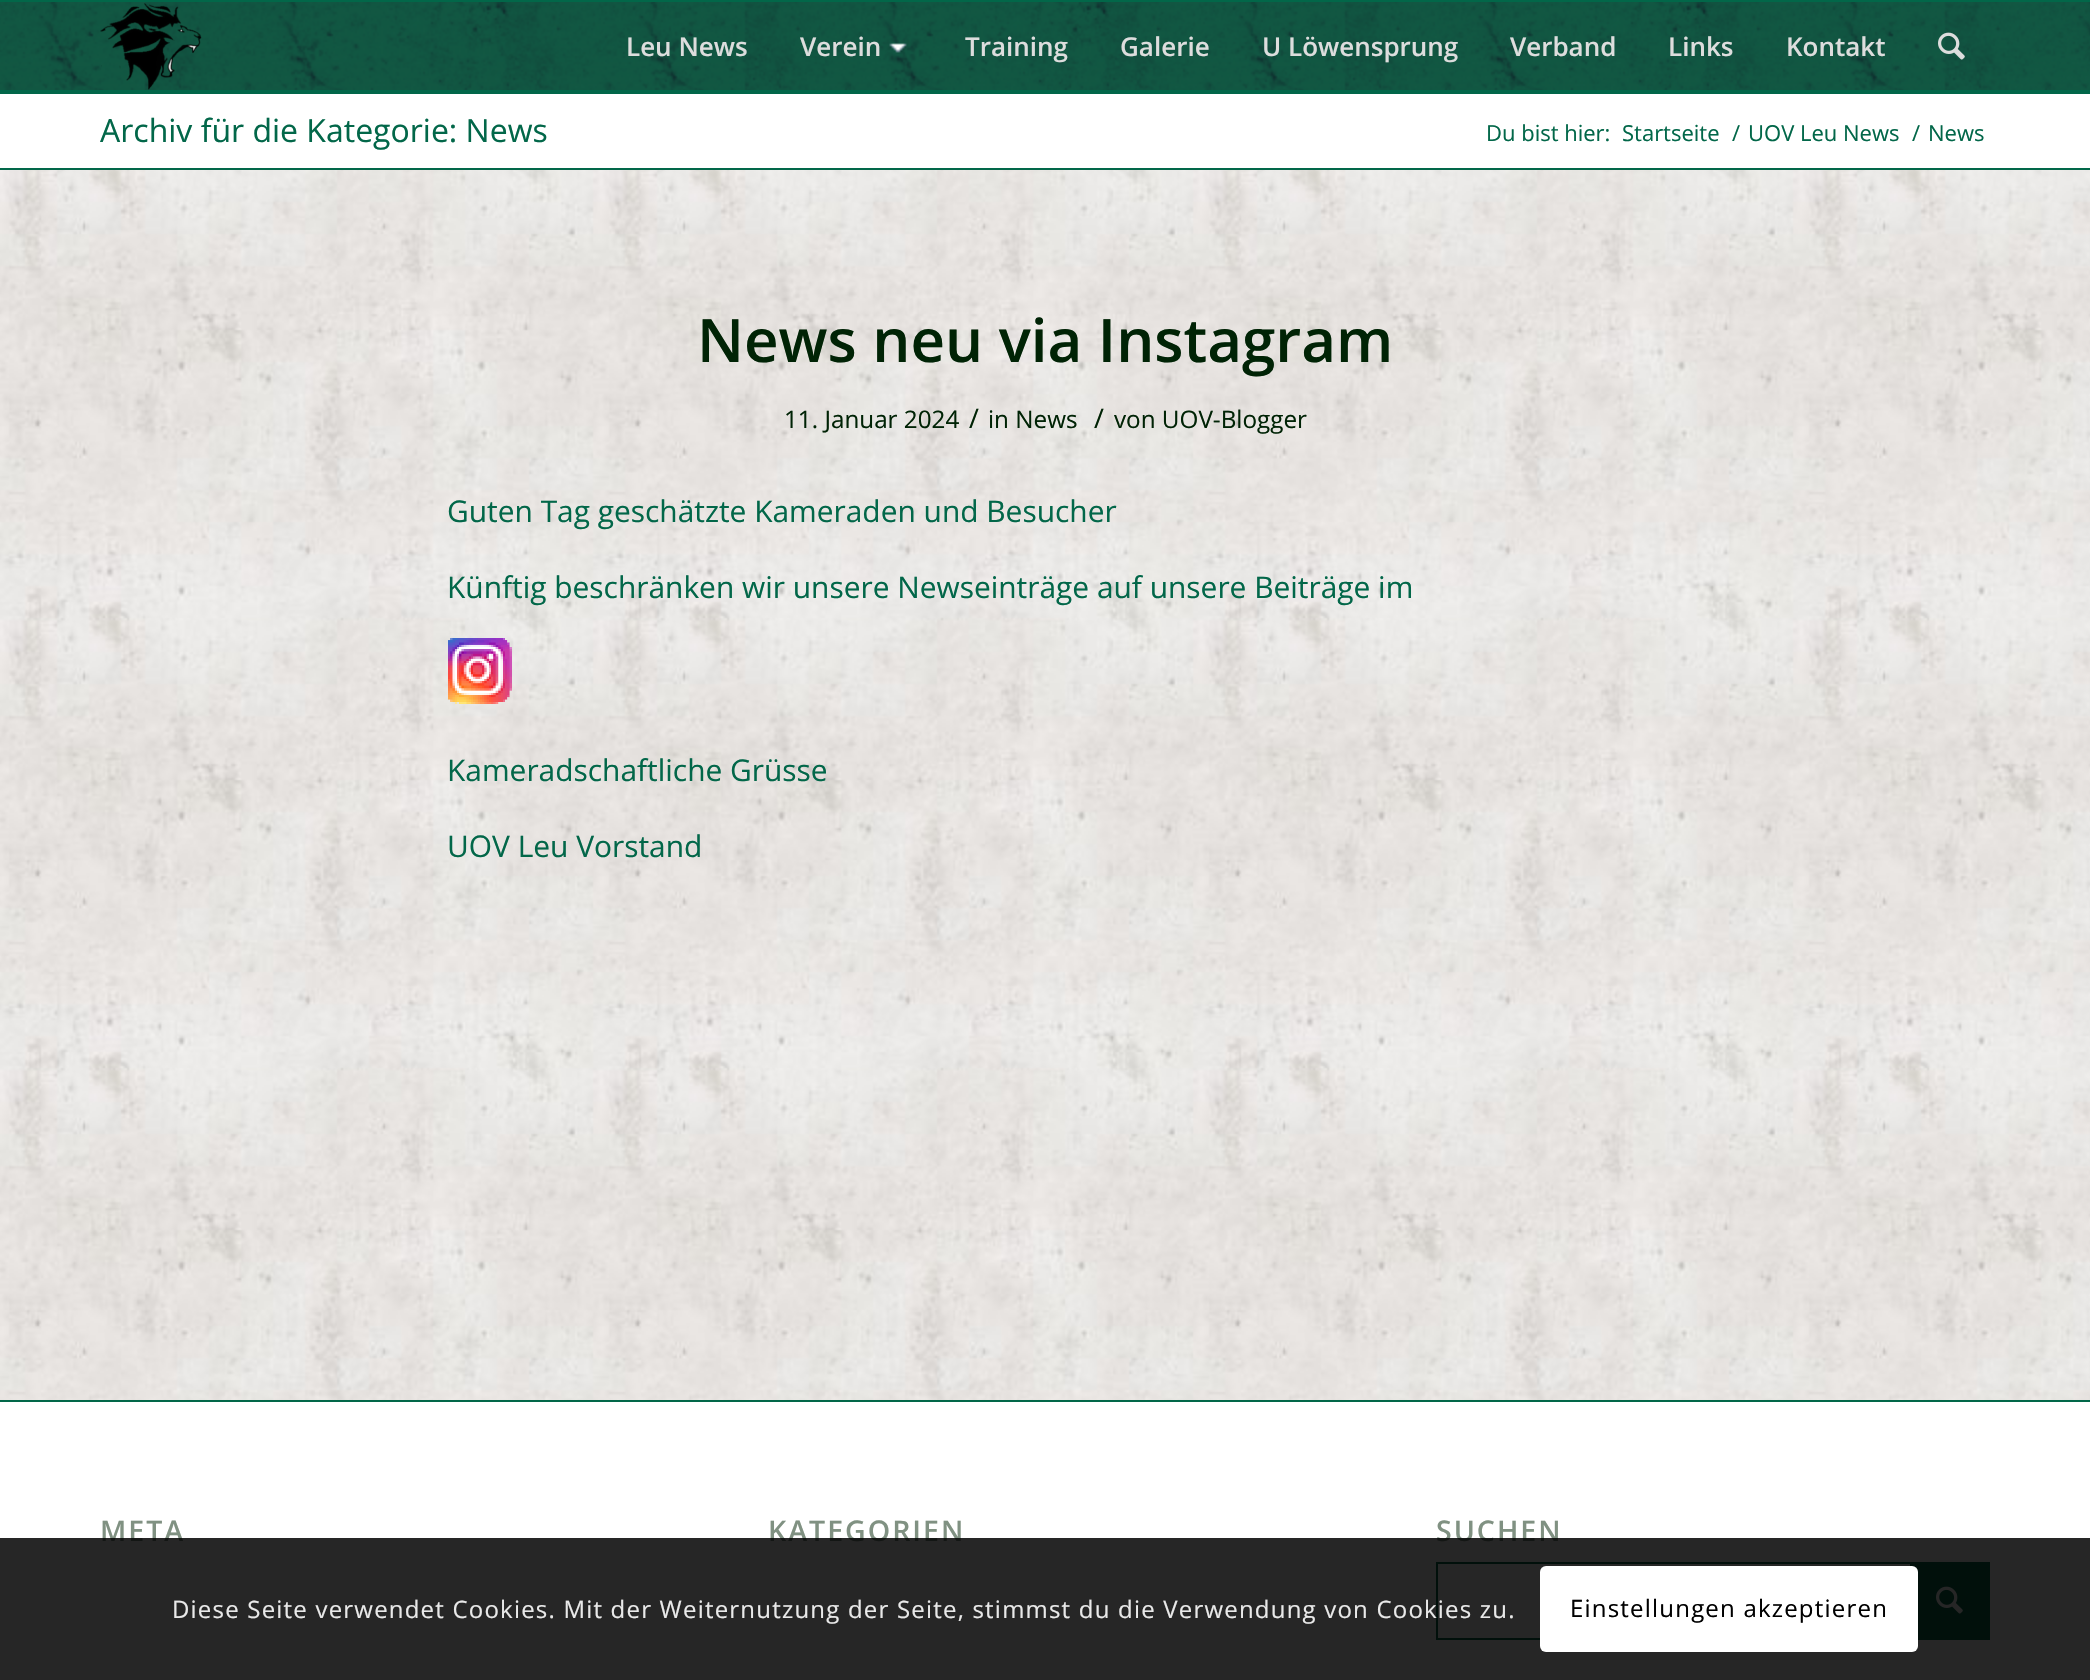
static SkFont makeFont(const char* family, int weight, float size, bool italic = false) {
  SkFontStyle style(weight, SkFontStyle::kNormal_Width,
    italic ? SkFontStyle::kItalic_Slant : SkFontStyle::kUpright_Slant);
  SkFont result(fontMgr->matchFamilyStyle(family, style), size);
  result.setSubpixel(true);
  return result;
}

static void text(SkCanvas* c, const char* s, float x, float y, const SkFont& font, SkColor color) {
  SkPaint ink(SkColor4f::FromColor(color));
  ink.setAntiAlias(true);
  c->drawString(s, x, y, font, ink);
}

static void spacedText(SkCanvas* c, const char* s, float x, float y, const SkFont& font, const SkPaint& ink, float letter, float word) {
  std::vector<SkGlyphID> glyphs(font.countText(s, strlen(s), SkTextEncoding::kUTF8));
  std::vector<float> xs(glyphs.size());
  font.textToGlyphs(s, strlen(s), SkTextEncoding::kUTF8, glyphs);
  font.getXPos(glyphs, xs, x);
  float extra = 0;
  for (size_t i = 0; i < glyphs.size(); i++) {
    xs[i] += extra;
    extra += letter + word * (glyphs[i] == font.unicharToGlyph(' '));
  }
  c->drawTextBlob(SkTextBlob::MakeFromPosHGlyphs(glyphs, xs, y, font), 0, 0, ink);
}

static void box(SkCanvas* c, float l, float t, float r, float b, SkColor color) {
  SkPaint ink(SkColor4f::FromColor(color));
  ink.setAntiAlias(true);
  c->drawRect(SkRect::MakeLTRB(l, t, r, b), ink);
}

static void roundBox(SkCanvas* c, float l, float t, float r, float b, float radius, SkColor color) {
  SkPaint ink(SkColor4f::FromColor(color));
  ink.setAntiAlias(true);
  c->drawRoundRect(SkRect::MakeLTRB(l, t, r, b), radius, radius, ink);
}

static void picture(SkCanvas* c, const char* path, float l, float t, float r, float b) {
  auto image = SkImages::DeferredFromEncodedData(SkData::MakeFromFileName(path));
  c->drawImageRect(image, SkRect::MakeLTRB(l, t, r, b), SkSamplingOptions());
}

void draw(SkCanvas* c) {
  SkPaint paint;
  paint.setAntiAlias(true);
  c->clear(0xffffffff);
  picture(c, "img_01.png", 0, 2, 2090, 90);
  box(c, 0, 0, 2090, 2, 0xff026749);
  picture(c, "img_02.png", 100, 3, 202, 90);
  SkFont face1 = makeFont("Open Sans", 600, 26);
  text(c, "Leu News", 626, 56, face1, 0xffdddddd);
  text(c, "Verein", 800, 56, face1, 0xffdddddd);
  picture(c, "img_03.png", 889, 43, 907, 53);
  text(c, "Training", 965, 56, face1, 0xffdddddd);
  text(c, "Galerie", 1120, 56, face1, 0xffdddddd);
  text(c, "U Löwensprung", 1262, 56, face1, 0xffdddddd);
  text(c, "Verband", 1510, 56, face1, 0xffdddddd);
  text(c, "Links", 1668, 56, face1, 0xffdddddd);
  text(c, "Kontakt", 1786, 56, face1, 0xffdddddd);
  picture(c, "img_04.png", 1938, 32, 1965, 60);
  box(c, 0, 90, 2090, 94, 0xff026749);
  SkFont face2 = makeFont("Open Sans", 400, 32);
  text(c, "Archiv für die Kategorie: News", 100, 142, face2, 0xff026749);
  SkFont face3 = makeFont("Open Sans", 400, 22);
  text(c, "Du bist hier:", 1486, 141, face3, 0xff026749);
  text(c, "Startseite", 1622, 141, face3, 0xff026749);
  text(c, "/", 1732, 141, face3, 0xff026749);
  text(c, "UOV Leu News", 1748, 141, face3, 0xff026749);
  text(c, "/", 1912, 141, face3, 0xff026749);
  text(c, "News", 1928, 141, face3, 0xff026749);
  picture(c, "img_05.png", 0, 170, 2090, 1400);
  box(c, 0, 168, 2090, 170, 0xff026749);
  SkFont face4 = makeFont("Open Sans", 600, 60);
  text(c, "News neu via Instagram", 697, 362, face4, 0xff002305);
  SkFont face5 = makeFont("Open Sans", 400, 24.25f);
  text(c, "11. Januar 2024", 784, 428, face5, 0xff002305);
  SkFont face6 = makeFont("Open Sans", 400, 27);
  text(c, "/", 969, 428, face6, 0xff002305);
  text(c, "in News", 988, 428, face5, 0xff002305);
  text(c, "/", 1094, 428, face6, 0xff002305);
  text(c, "von UOV-Blogger", 1114, 428, face5, 0xff002305);
  SkFont face7 = makeFont("Open Sans", 400, 29.9f);
  text(c, "Guten Tag geschätzte Kameraden und Besucher", 447, 522, face7, 0xff026749);
  text(c, "Künftig beschränken wir unsere Newseinträge auf unsere Beiträge im", 447, 598, face7, 0xff026749);
  picture(c, "img_06.png", 448, 638, 512, 704);
  text(c, "Kameradschaftliche Grüsse", 447, 781, face7, 0xff026749);
  text(c, "UOV Leu Vorstand", 447, 857, face7, 0xff026749);
  box(c, 0, 1400, 2090, 1402, 0xff026749);
  SkFont face8 = makeFont("Open Sans", 600, 28.5f);
  paint.setColor(0xff809182);
  spacedText(c, "META", 100, 1541, face8, paint, 2, 0);
  spacedText(c, "KATEGORIEN", 768, 1541, face8, paint, 2, 0);
  spacedText(c, "SUCHEN", 1436, 1541, face8, paint, 2, 0);
  paint.setStyle(SkPaint::kStroke_Style);
  paint.setStrokeWidth(2);
  paint.setColor(0xff026749);
  c->drawRect(SkRect::MakeLTRB(1437, 1563, 1989, 1639), paint);
  box(c, 1910, 1564, 1988, 1638, 0xff026749);
  picture(c, "img_07.png", 1936, 1586, 1963, 1614);
  box(c, 0, 1538, 2090, 1680, 0xd9000000);
  SkFont face9 = makeFont("Open Sans", 400, 24);
  paint.setStyle(SkPaint::kFill_Style);
  paint.setColor(0xffe9e9e9);
  spacedText(c, "Diese Seite verwendet Cookies. Mit der Weiternutzung der Seite, stimmst du die Verwendung von Cookies zu.", 172, 1618, face9, paint, 1.2f, 0);
  roundBox(c, 1540, 1566, 1918, 1652, 6, 0xffffffff);
  paint.setColor(0xff000000);
  spacedText(c, "Einstellungen akzeptieren", 1570, 1617, face9, paint, 1.2f, 0);
}
